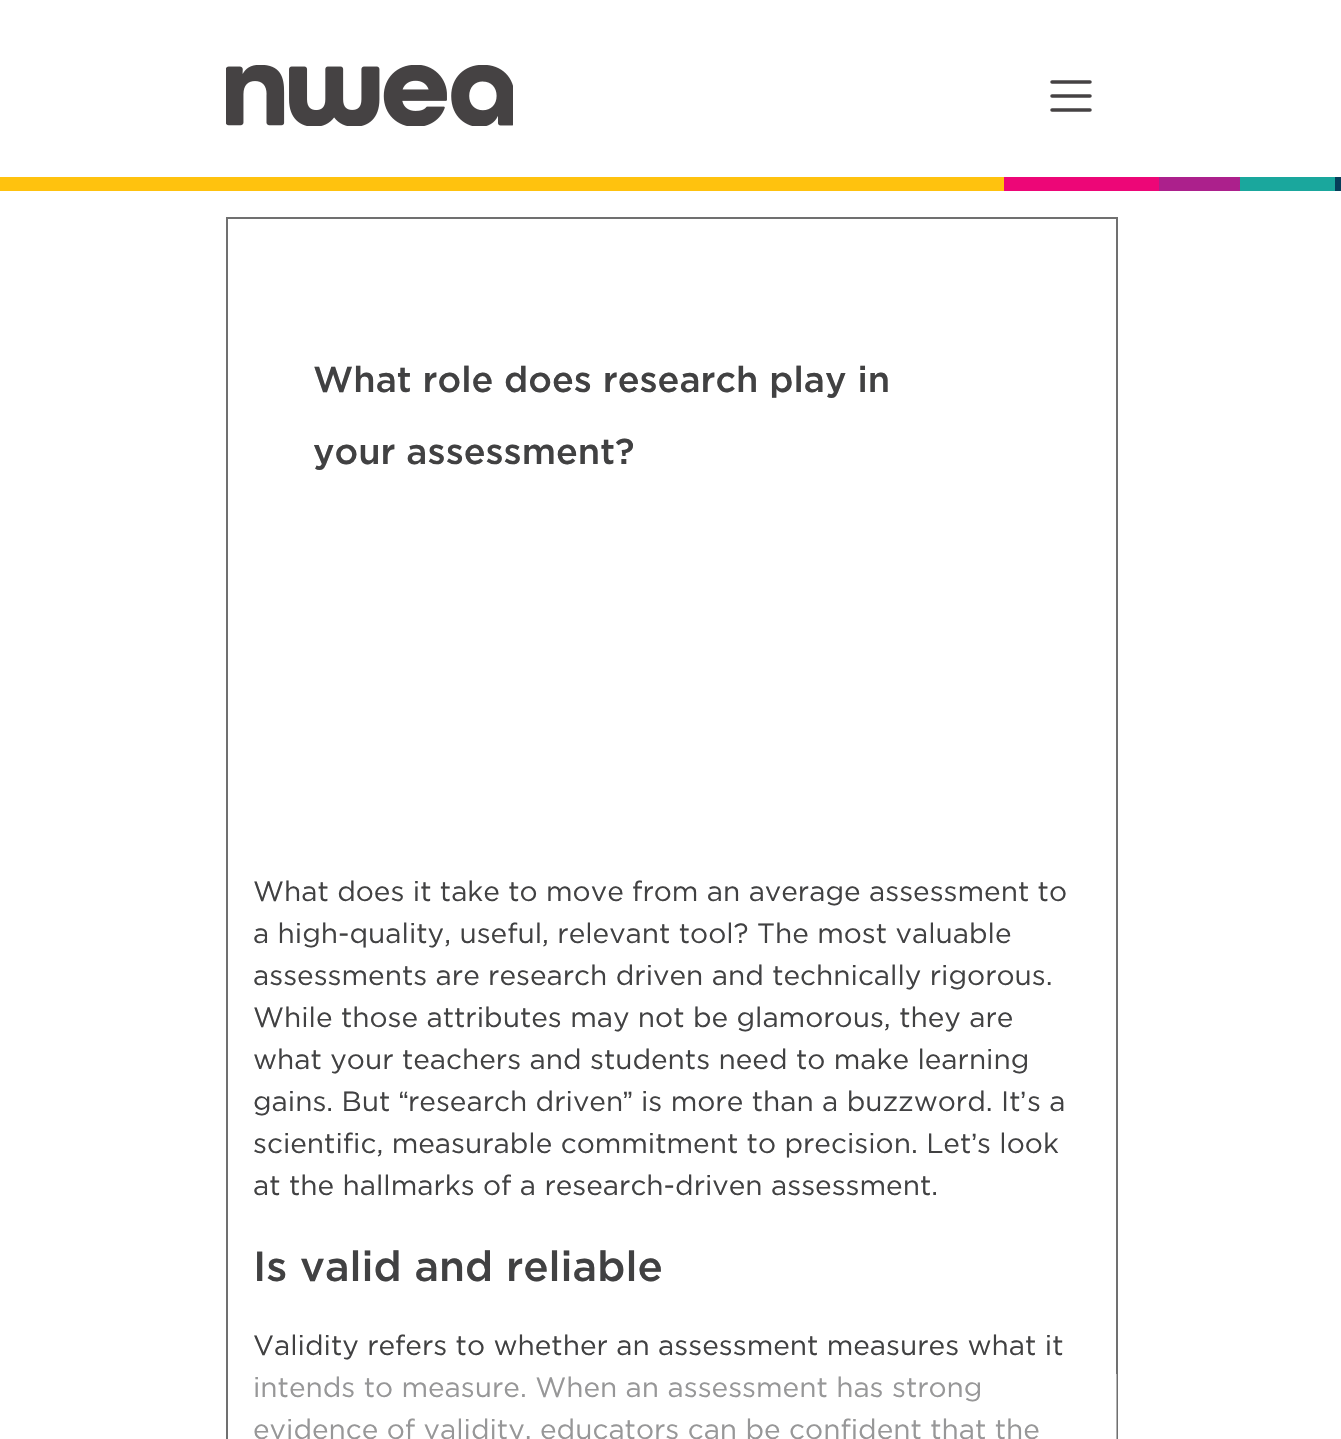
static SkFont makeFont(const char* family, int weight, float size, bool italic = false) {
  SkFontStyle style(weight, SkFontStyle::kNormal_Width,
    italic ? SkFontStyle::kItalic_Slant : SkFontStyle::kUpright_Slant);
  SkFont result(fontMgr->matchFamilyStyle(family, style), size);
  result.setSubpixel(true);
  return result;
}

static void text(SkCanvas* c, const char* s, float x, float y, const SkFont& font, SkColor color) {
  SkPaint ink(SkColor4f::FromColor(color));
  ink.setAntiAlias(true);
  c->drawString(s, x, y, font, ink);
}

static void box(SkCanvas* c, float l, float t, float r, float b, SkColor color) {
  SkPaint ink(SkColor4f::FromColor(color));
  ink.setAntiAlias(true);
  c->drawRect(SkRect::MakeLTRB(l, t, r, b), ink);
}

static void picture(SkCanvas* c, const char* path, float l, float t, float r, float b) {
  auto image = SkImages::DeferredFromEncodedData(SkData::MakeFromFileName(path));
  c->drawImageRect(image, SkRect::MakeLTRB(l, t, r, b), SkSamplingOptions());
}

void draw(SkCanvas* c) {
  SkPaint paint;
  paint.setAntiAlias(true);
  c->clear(0xffffffff);
  picture(c, "img_01.png", 226, 65, 513, 126);
  paint.setStyle(SkPaint::kStroke_Style);
  paint.setStrokeWidth(3.5f);
  paint.setStrokeCap(SkPaint::kRound_Cap);
  paint.setColor(0xff454243);
  c->drawPath(SkPathBuilder().moveTo(1052, 82).lineTo(1090, 82).moveTo(1052, 96).lineTo(1090, 96).moveTo(1052, 110).lineTo(1090, 110).detach(), paint);
  box(c, 0, 177, 1004, 191, 0xffffc20e);
  box(c, 1004, 177, 1159, 191, 0xffed0677);
  box(c, 1159, 177, 1240, 191, 0xffac208c);
  box(c, 1240, 177, 1335, 191, 0xff1aa79d);
  box(c, 1335, 177, 1341, 191, 0xff063e5a);
  paint.setStrokeWidth(2);
  paint.setStrokeCap(SkPaint::kButt_Cap);
  paint.setColor(0xff707070);
  c->drawRect(SkRect::MakeLTRB(227, 218, 1117, 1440), paint);
  SkFont face1 = makeFont("Gotham", 500, 36.1f);
  text(c, "What role does research play in", 313, 392, face1, 0xff414142);
  text(c, "your assessment?", 313, 464, face1, 0xff414142);
  SkFont face2 = makeFont("Gotham", 400, 28);
  text(c, "What does it take to move from an average assessment to", 253, 901, face2, 0xff414142);
  text(c, "a high-quality, useful, relevant tool? The most valuable", 253, 943, face2, 0xff414142);
  text(c, "assessments are research driven and technically rigorous.", 253, 985, face2, 0xff414142);
  text(c, "While those attributes may not be glamorous, they are", 253, 1027, face2, 0xff414142);
  text(c, "what your teachers and students need to make learning", 253, 1069, face2, 0xff414142);
  text(c, "gains. But", 253, 1111, face2, 0xff414142);
  SkFont face3 = makeFont("Liberation Sans", 400, 28);
  text(c, "“", 399, 1111, face3, 0xff414142);
  text(c, "research driven", 408, 1111, face2, 0xff414142);
  text(c, "”", 623, 1111, face3, 0xff414142);
  text(c, "is more than a buzzword. It", 641, 1111, face2, 0xff414142);
  text(c, "’", 1020, 1111, face3, 0xff414142);
  text(c, "s a", 1027, 1111, face2, 0xff414142);
  text(c, "scientific, measurable commitment to precision. Let", 253, 1153, face2, 0xff414142);
  text(c, "’", 971, 1153, face3, 0xff414142);
  text(c, "s look", 977, 1153, face2, 0xff414142);
  text(c, "at the hallmarks of a research-driven assessment.", 253, 1195, face2, 0xff414142);
  SkFont face4 = makeFont("Gotham", 500, 42);
  text(c, "Is valid and reliable", 253, 1281, face4, 0xff414142);
  text(c, "Validity refers to whether an assessment measures what it", 253, 1355, face2, 0xff414142);
  text(c, "intends to measure. When an assessment has strong", 253, 1397, face2, 0xff414142);
  text(c, "evidence of validity, educators can be confident that the", 253, 1439, face2, 0xff414142);
  box(c, 254, 1374, 1117, 1439, 0x73ffffff);
}
